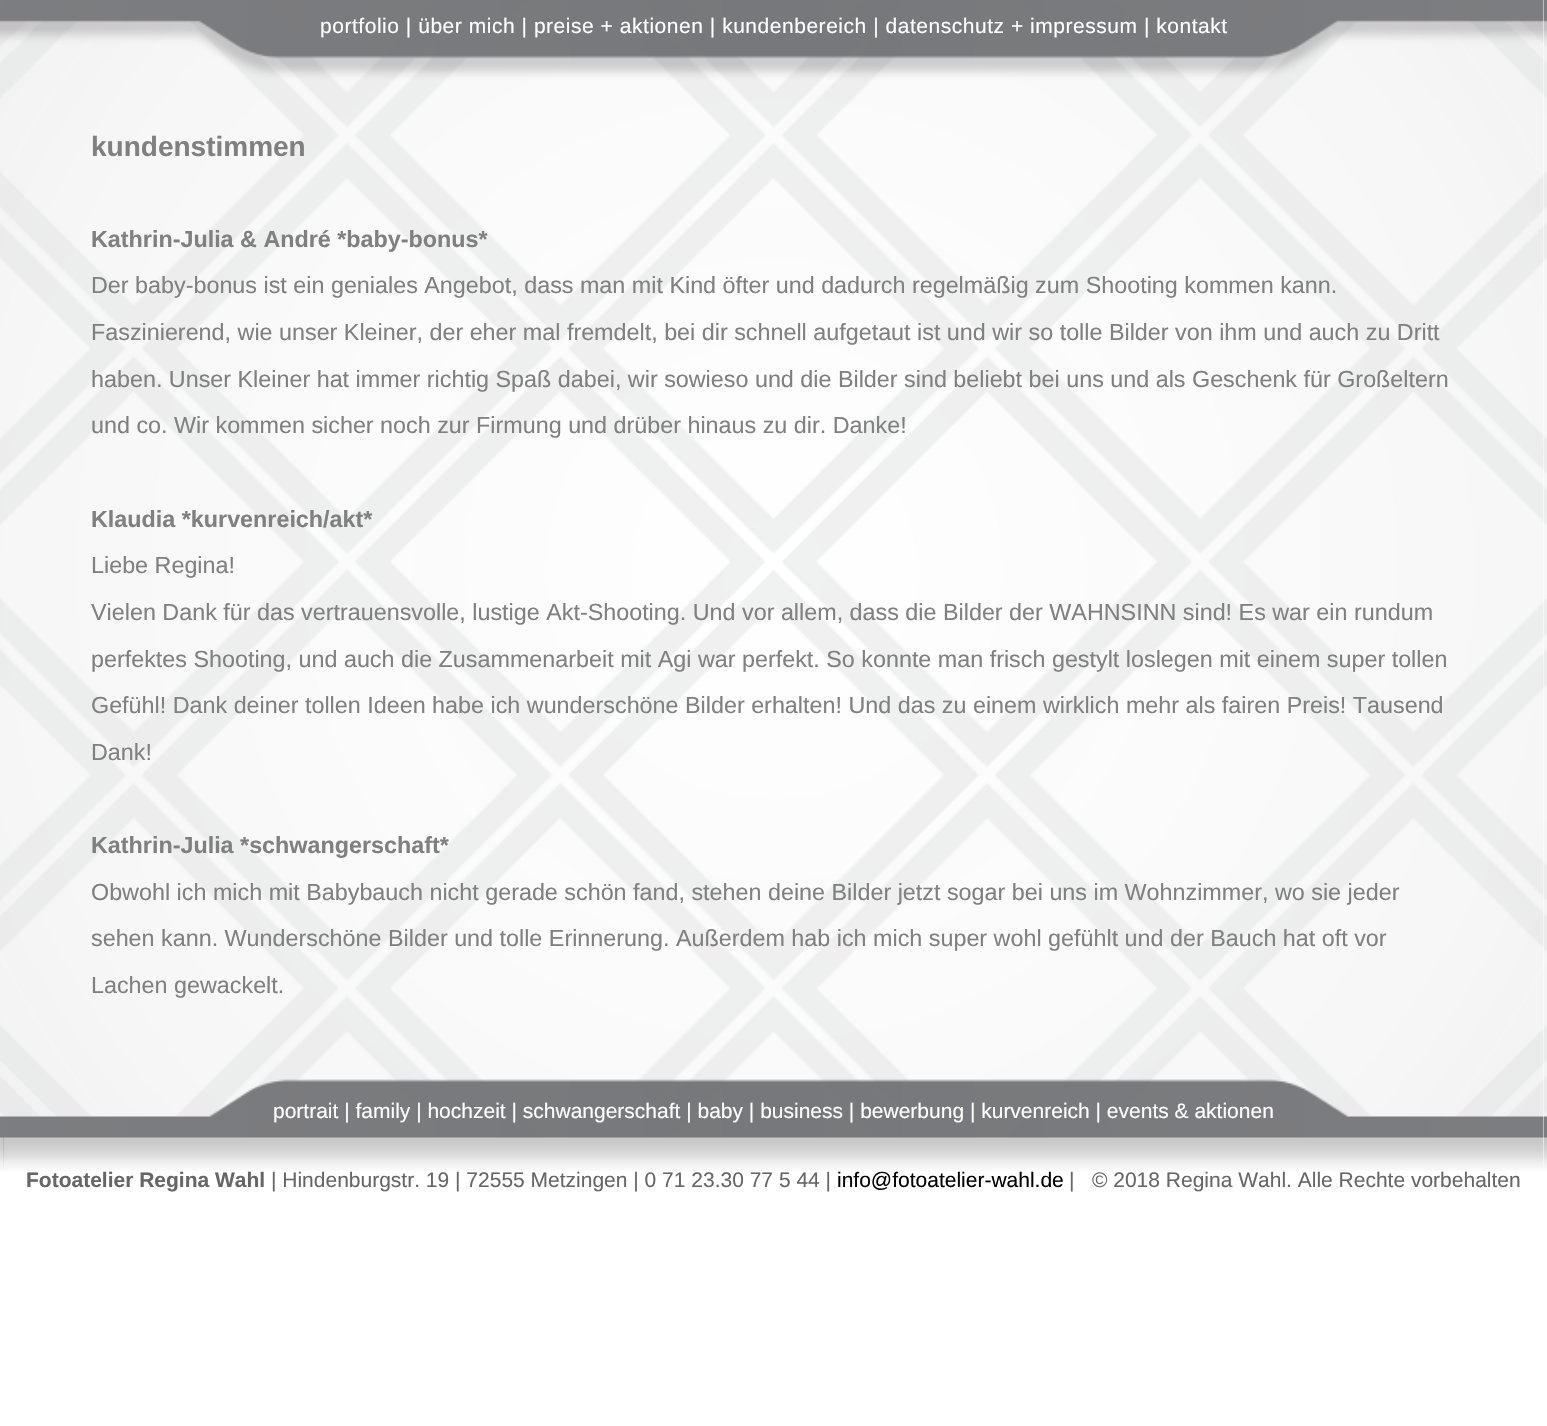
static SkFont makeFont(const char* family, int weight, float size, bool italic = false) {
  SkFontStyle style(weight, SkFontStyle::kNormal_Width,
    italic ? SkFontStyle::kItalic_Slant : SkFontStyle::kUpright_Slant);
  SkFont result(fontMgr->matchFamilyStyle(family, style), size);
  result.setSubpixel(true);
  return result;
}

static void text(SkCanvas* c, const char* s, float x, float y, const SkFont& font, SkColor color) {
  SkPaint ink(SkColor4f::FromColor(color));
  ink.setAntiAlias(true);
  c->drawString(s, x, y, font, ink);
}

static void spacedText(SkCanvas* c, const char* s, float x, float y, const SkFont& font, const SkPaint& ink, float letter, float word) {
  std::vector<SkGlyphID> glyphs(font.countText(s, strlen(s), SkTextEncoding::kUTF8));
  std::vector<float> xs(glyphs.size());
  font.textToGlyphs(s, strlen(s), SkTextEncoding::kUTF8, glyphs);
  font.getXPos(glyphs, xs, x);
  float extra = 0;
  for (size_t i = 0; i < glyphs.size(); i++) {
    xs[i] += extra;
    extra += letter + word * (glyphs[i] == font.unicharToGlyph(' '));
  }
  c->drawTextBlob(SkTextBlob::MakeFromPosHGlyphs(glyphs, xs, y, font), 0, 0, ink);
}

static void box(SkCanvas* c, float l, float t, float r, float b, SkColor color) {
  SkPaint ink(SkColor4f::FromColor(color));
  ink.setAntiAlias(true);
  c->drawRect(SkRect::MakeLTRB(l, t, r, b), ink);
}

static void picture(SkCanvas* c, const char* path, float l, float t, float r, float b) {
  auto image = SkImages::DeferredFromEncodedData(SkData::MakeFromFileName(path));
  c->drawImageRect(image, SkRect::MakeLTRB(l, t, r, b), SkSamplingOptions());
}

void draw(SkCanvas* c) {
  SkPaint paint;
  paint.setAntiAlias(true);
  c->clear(0xffffffff);
  picture(c, "img_01.png", 0, 0, 1547, 1171);
  box(c, 4, 0, 1544, 1171, 0xffffffff);
  picture(c, "img_02.png", 3, 0, 1544, 1171);
  SkFont face1 = makeFont("Liberation Sans", 400, 21);
  paint.setColor(0xffffffff);
  spacedText(c, "portfolio | über mich | preise + aktionen | kundenbereich | datenschutz + impressum | kontakt", 320, 33, face1, paint, 0.53f, 0);
  SkFont face2 = makeFont("Liberation Sans", 700, 28);
  text(c, "kundenstimmen", 91, 156, face2, 0xff808080);
  SkFont face3 = makeFont("Liberation Sans", 700, 23.33f);
  text(c, "Kathrin-Julia & André *baby-bonus*", 91, 247, face3, 0xff808080);
  SkFont face4 = makeFont("Liberation Sans", 400, 23.33f);
  text(c, "Der baby-bonus ist ein geniales Angebot, dass man mit Kind öfter und dadurch regelmäßig zum Shooting kommen kann.", 91, 293, face4, 0xff808080);
  text(c, "Faszinierend, wie unser Kleiner, der eher mal fremdelt, bei dir schnell aufgetaut ist und wir so tolle Bilder von ihm und auch zu Dritt", 91, 340, face4, 0xff808080);
  text(c, "haben. Unser Kleiner hat immer richtig Spaß dabei, wir sowieso und die Bilder sind beliebt bei uns und als Geschenk für Großeltern", 91, 387, face4, 0xff808080);
  text(c, "und co. Wir kommen sicher noch zur Firmung und drüber hinaus zu dir. Danke!", 91, 433, face4, 0xff808080);
  text(c, "Klaudia *kurvenreich/akt*", 91, 527, face3, 0xff808080);
  text(c, "Liebe Regina!", 91, 573, face4, 0xff808080);
  text(c, "Vielen Dank für das vertrauensvolle, lustige Akt-Shooting. Und vor allem, dass die Bilder der WAHNSINN sind! Es war ein rundum", 91, 620, face4, 0xff808080);
  text(c, "perfektes Shooting, und auch die Zusammenarbeit mit Agi war perfekt. So konnte man frisch gestylt loslegen mit einem super tollen", 91, 667, face4, 0xff808080);
  text(c, "Gefühl! Dank deiner tollen Ideen habe ich wunderschöne Bilder erhalten! Und das zu einem wirklich mehr als fairen Preis! Tausend", 91, 713, face4, 0xff808080);
  text(c, "Dank!", 91, 760, face4, 0xff808080);
  text(c, "Kathrin-Julia *schwangerschaft*", 91, 853, face3, 0xff808080);
  text(c, "Obwohl ich mich mit Babybauch nicht gerade schön fand, stehen deine Bilder jetzt sogar bei uns im Wohnzimmer, wo sie jeder", 91, 900, face4, 0xff808080);
  text(c, "sehen kann. Wunderschöne Bilder und tolle Erinnerung. Außerdem hab ich mich super wohl gefühlt und der Bauch hat oft vor", 91, 946, face4, 0xff808080);
  text(c, "Lachen gewackelt.", 91, 993, face4, 0xff808080);
  text(c, "portrait | family | hochzeit | schwangerschaft | baby | business | bewerbung | kurvenreich | events & aktionen", 273, 1118, face1, 0xffffffff);
  SkFont face5 = makeFont("Liberation Sans", 700, 21);
  text(c, "Fotoatelier Regina Wahl", 26, 1187, face5, 0xff666666);
  text(c, "| Hindenburgstr. 19 | 72555 Metzingen | 0 71 23.30 77 5 44 |", 271, 1187, face1, 0xff666666);
  text(c, "info@fotoatelier-wahl.de", 837, 1187, face1, 0xff000000);
  text(c, "|   © 2018 Regina Wahl. Alle Rechte vorbehalten", 1069, 1187, face1, 0xff666666);
}
